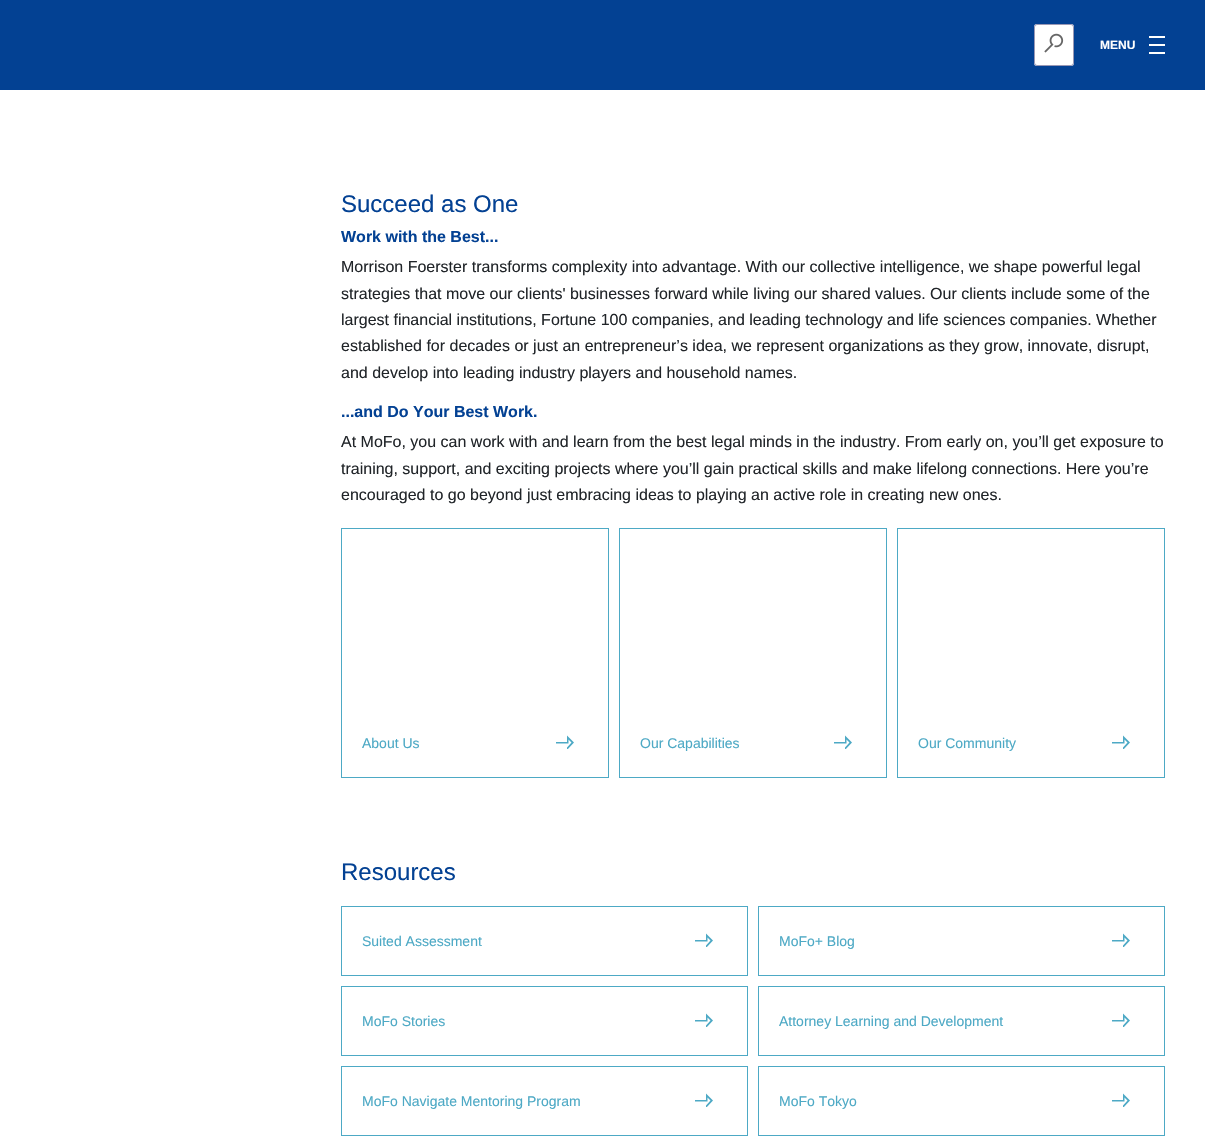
static SkFont makeFont(const char* family, int weight, float size, bool italic = false) {
  SkFontStyle style(weight, SkFontStyle::kNormal_Width,
    italic ? SkFontStyle::kItalic_Slant : SkFontStyle::kUpright_Slant);
  SkFont result(fontMgr->matchFamilyStyle(family, style), size);
  result.setSubpixel(true);
  return result;
}

static void text(SkCanvas* c, const char* s, float x, float y, const SkFont& font, SkColor color) {
  SkPaint ink(SkColor4f::FromColor(color));
  ink.setAntiAlias(true);
  c->drawString(s, x, y, font, ink);
}

static void box(SkCanvas* c, float l, float t, float r, float b, SkColor color) {
  SkPaint ink(SkColor4f::FromColor(color));
  ink.setAntiAlias(true);
  c->drawRect(SkRect::MakeLTRB(l, t, r, b), ink);
}

static void roundBox(SkCanvas* c, float l, float t, float r, float b, float radius, SkColor color) {
  SkPaint ink(SkColor4f::FromColor(color));
  ink.setAntiAlias(true);
  c->drawRoundRect(SkRect::MakeLTRB(l, t, r, b), radius, radius, ink);
}

static void picture(SkCanvas* c, const char* path, float l, float t, float r, float b) {
  auto image = SkImages::DeferredFromEncodedData(SkData::MakeFromFileName(path));
  c->drawImageRect(image, SkRect::MakeLTRB(l, t, r, b), SkSamplingOptions());
}

void draw(SkCanvas* c) {
  SkPaint paint;
  paint.setAntiAlias(true);
  c->clear(0xffffffff);
  box(c, 0, 0, 1205, 90, 0xff034193);
  roundBox(c, 1034, 24, 1074, 66, 3, 0xffffffff);
  paint.setStyle(SkPaint::kStroke_Style);
  paint.setStrokeWidth(1);
  paint.setColor(0xcc807ea3);
  c->drawRoundRect(SkRect::MakeLTRB(1034.5f, 24.5f, 1073.5f, 65.5f), 2.5f, 2.5f, paint);
  picture(c, "img_01.png", 1044, 33, 1064, 53);
  SkFont face1 = makeFont("Liberation Sans", 700, 12);
  text(c, "MENU", 1100, 49, face1, 0xffffffff);
  box(c, 1149, 36, 1165, 38, 0xffffffff);
  box(c, 1149, 44, 1165, 46, 0xffffffff);
  box(c, 1149, 52, 1165, 54, 0xffffffff);
  SkFont face2 = makeFont("Liberation Sans", 400, 24);
  text(c, "Succeed as One", 341, 212, face2, 0xff034193);
  SkFont face3 = makeFont("Liberation Sans", 700, 16);
  text(c, "Work with the Best...", 341, 242, face3, 0xff034193);
  SkFont face4 = makeFont("Liberation Sans", 400, 16);
  text(c, "Morrison Foerster transforms complexity into advantage. With our collective intelligence, we shape powerful legal", 341, 272, face4, 0xff212529);
  text(c, "strategies that move our clients' businesses forward while living our shared values. Our clients include some of the", 341, 299, face4, 0xff212529);
  text(c, "largest financial institutions, Fortune 100 companies, and leading technology and life sciences companies. Whether", 341, 325, face4, 0xff212529);
  text(c, "established for decades or just an entrepreneur’s idea, we represent organizations as they grow, innovate, disrupt,", 341, 351, face4, 0xff212529);
  text(c, "and develop into leading industry players and household names.", 341, 378, face4, 0xff212529);
  text(c, "...and Do Your Best Work.", 341, 417, face3, 0xff034193);
  text(c, "At MoFo, you can work with and learn from the best legal minds in the industry. From early on, you’ll get exposure to", 341, 447, face4, 0xff212529);
  text(c, "training, support, and exciting projects where you’ll gain practical skills and make lifelong connections. Here you’re", 341, 474, face4, 0xff212529);
  text(c, "encouraged to go beyond just embracing ideas to playing an active role in creating new ones.", 341, 500, face4, 0xff212529);
  paint.setColor(0xff4da9c5);
  c->drawRect(SkRect::MakeLTRB(341.5f, 528.5f, 608.5f, 777.5f), paint);
  SkFont face5 = makeFont("Liberation Sans", 400, 14);
  text(c, "About Us", 362, 748, face5, 0xff4da9c5);
  c->save();
  c->clipRect(SkRect::MakeLTRB(556, 725, 574, 749));
  paint.setStyle(SkPaint::kFill_Style);
  c->drawPath(SkPathBuilder().moveTo(567, 750).lineTo(574, 742.5f).lineTo(567, 735.5f).lineTo(567, 742).lineTo(534, 742).lineTo(534, 743.5f).lineTo(568.5f, 743.5f).lineTo(568.5f, 739.5f).lineTo(571.5f, 742.5f).lineTo(567, 747.5f).close().detach(), paint);
  c->restore();
  paint.setStyle(SkPaint::kStroke_Style);
  c->drawRect(SkRect::MakeLTRB(619.5f, 528.5f, 886.5f, 777.5f), paint);
  text(c, "Our Capabilities", 640, 748, face5, 0xff4da9c5);
  c->save();
  c->clipRect(SkRect::MakeLTRB(834, 725, 852, 749));
  paint.setStyle(SkPaint::kFill_Style);
  c->drawPath(SkPathBuilder().moveTo(845, 750).lineTo(852, 742.5f).lineTo(845, 735.5f).lineTo(845, 742).lineTo(812, 742).lineTo(812, 743.5f).lineTo(846.5f, 743.5f).lineTo(846.5f, 739.5f).lineTo(849.5f, 742.5f).lineTo(845, 747.5f).close().detach(), paint);
  c->restore();
  paint.setStyle(SkPaint::kStroke_Style);
  c->drawRect(SkRect::MakeLTRB(897.5f, 528.5f, 1164.5f, 777.5f), paint);
  text(c, "Our Community", 918, 748, face5, 0xff4da9c5);
  c->save();
  c->clipRect(SkRect::MakeLTRB(1112, 725, 1130, 749));
  paint.setStyle(SkPaint::kFill_Style);
  c->drawPath(SkPathBuilder().moveTo(1123, 750).lineTo(1130, 742.5f).lineTo(1123, 735.5f).lineTo(1123, 742).lineTo(1090, 742).lineTo(1090, 743.5f).lineTo(1124.5f, 743.5f).lineTo(1124.5f, 739.5f).lineTo(1127.5f, 742.5f).lineTo(1123, 747.5f).close().detach(), paint);
  c->restore();
  text(c, "Resources", 341, 880, face2, 0xff034193);
  paint.setStyle(SkPaint::kStroke_Style);
  c->drawRect(SkRect::MakeLTRB(341.5f, 906.5f, 747.5f, 975.5f), paint);
  text(c, "Suited Assessment", 362, 946, face5, 0xff4da9c5);
  c->save();
  c->clipRect(SkRect::MakeLTRB(695, 923, 713, 947));
  paint.setStyle(SkPaint::kFill_Style);
  c->drawPath(SkPathBuilder().moveTo(706, 948).lineTo(713, 940.5f).lineTo(706, 933.5f).lineTo(706, 940).lineTo(673, 940).lineTo(673, 941.5f).lineTo(707.5f, 941.5f).lineTo(707.5f, 937.5f).lineTo(710.5f, 940.5f).lineTo(706, 945.5f).close().detach(), paint);
  c->restore();
  paint.setStyle(SkPaint::kStroke_Style);
  c->drawRect(SkRect::MakeLTRB(758.5f, 906.5f, 1164.5f, 975.5f), paint);
  text(c, "MoFo+ Blog", 779, 946, face5, 0xff4da9c5);
  c->save();
  c->clipRect(SkRect::MakeLTRB(1112, 923, 1130, 947));
  paint.setStyle(SkPaint::kFill_Style);
  c->drawPath(SkPathBuilder().moveTo(1123, 948).lineTo(1130, 940.5f).lineTo(1123, 933.5f).lineTo(1123, 940).lineTo(1090, 940).lineTo(1090, 941.5f).lineTo(1124.5f, 941.5f).lineTo(1124.5f, 937.5f).lineTo(1127.5f, 940.5f).lineTo(1123, 945.5f).close().detach(), paint);
  c->restore();
  paint.setStyle(SkPaint::kStroke_Style);
  c->drawRect(SkRect::MakeLTRB(341.5f, 986.5f, 747.5f, 1055.5f), paint);
  text(c, "MoFo Stories", 362, 1026, face5, 0xff4da9c5);
  c->save();
  c->clipRect(SkRect::MakeLTRB(695, 1003, 713, 1027));
  paint.setStyle(SkPaint::kFill_Style);
  c->drawPath(SkPathBuilder().moveTo(706, 1028).lineTo(713, 1020.5f).lineTo(706, 1013.5f).lineTo(706, 1020).lineTo(673, 1020).lineTo(673, 1021.5f).lineTo(707.5f, 1021.5f).lineTo(707.5f, 1017.5f).lineTo(710.5f, 1020.5f).lineTo(706, 1025.5f).close().detach(), paint);
  c->restore();
  paint.setStyle(SkPaint::kStroke_Style);
  c->drawRect(SkRect::MakeLTRB(758.5f, 986.5f, 1164.5f, 1055.5f), paint);
  text(c, "Attorney Learning and Development", 779, 1026, face5, 0xff4da9c5);
  c->save();
  c->clipRect(SkRect::MakeLTRB(1112, 1003, 1130, 1027));
  paint.setStyle(SkPaint::kFill_Style);
  c->drawPath(SkPathBuilder().moveTo(1123, 1028).lineTo(1130, 1020.5f).lineTo(1123, 1013.5f).lineTo(1123, 1020).lineTo(1090, 1020).lineTo(1090, 1021.5f).lineTo(1124.5f, 1021.5f).lineTo(1124.5f, 1017.5f).lineTo(1127.5f, 1020.5f).lineTo(1123, 1025.5f).close().detach(), paint);
  c->restore();
  paint.setStyle(SkPaint::kStroke_Style);
  c->drawRect(SkRect::MakeLTRB(341.5f, 1066.5f, 747.5f, 1135.5f), paint);
  text(c, "MoFo Navigate Mentoring Program", 362, 1106, face5, 0xff4da9c5);
  c->save();
  c->clipRect(SkRect::MakeLTRB(695, 1083, 713, 1107));
  paint.setStyle(SkPaint::kFill_Style);
  c->drawPath(SkPathBuilder().moveTo(706, 1108).lineTo(713, 1100.5f).lineTo(706, 1093.5f).lineTo(706, 1100).lineTo(673, 1100).lineTo(673, 1101.5f).lineTo(707.5f, 1101.5f).lineTo(707.5f, 1097.5f).lineTo(710.5f, 1100.5f).lineTo(706, 1105.5f).close().detach(), paint);
  c->restore();
  paint.setStyle(SkPaint::kStroke_Style);
  c->drawRect(SkRect::MakeLTRB(758.5f, 1066.5f, 1164.5f, 1135.5f), paint);
  text(c, "MoFo Tokyo", 779, 1106, face5, 0xff4da9c5);
  c->save();
  c->clipRect(SkRect::MakeLTRB(1112, 1083, 1130, 1107));
  paint.setStyle(SkPaint::kFill_Style);
  c->drawPath(SkPathBuilder().moveTo(1123, 1108).lineTo(1130, 1100.5f).lineTo(1123, 1093.5f).lineTo(1123, 1100).lineTo(1090, 1100).lineTo(1090, 1101.5f).lineTo(1124.5f, 1101.5f).lineTo(1124.5f, 1097.5f).lineTo(1127.5f, 1100.5f).lineTo(1123, 1105.5f).close().detach(), paint);
  c->restore();
}
